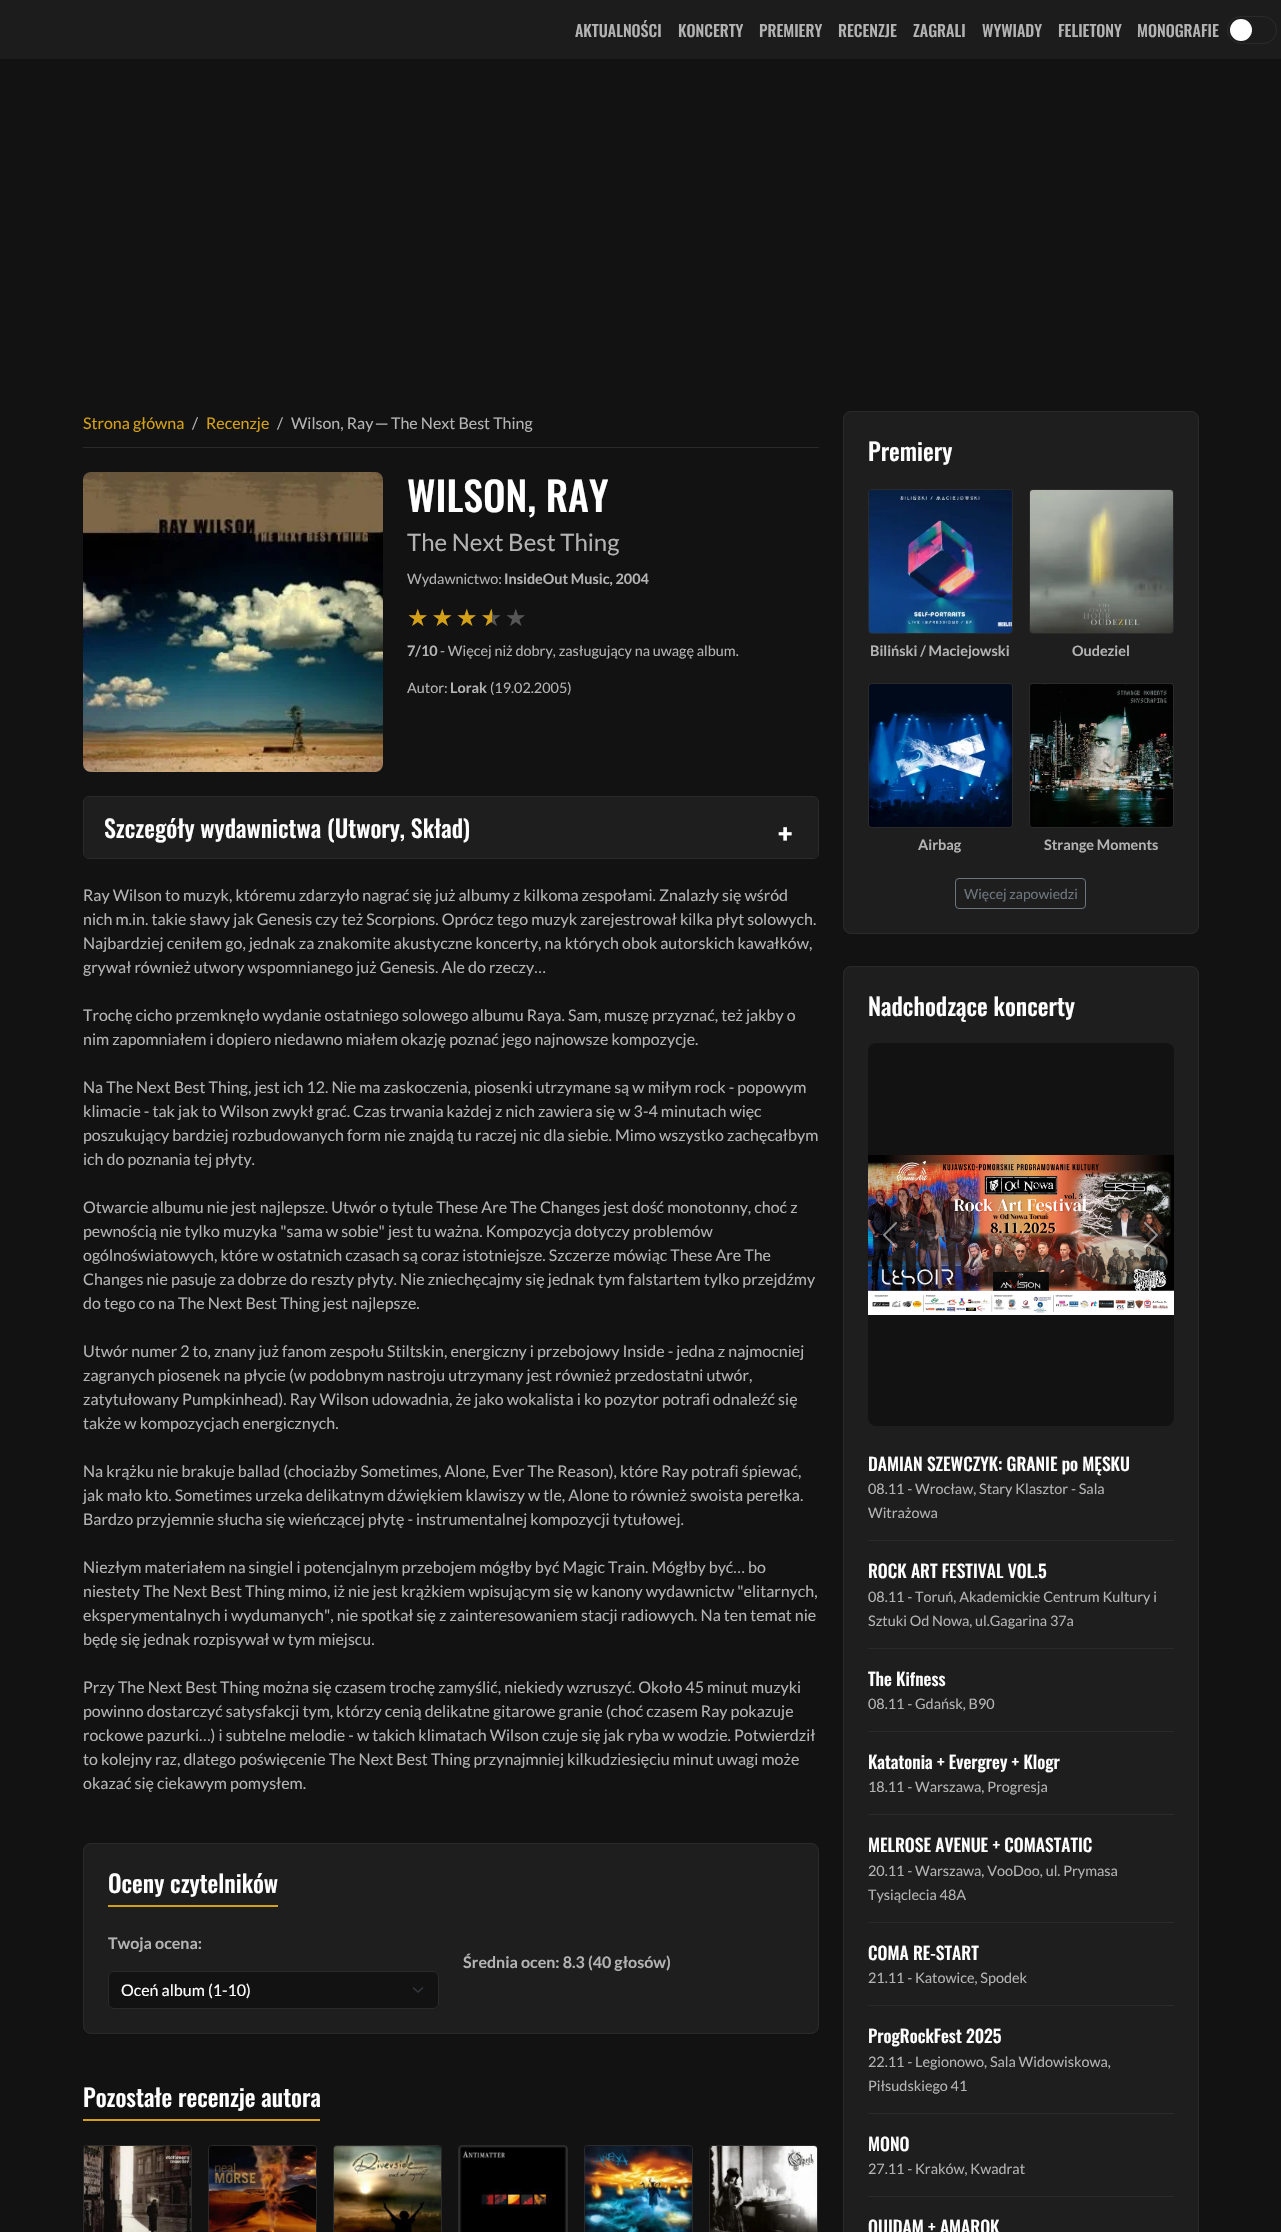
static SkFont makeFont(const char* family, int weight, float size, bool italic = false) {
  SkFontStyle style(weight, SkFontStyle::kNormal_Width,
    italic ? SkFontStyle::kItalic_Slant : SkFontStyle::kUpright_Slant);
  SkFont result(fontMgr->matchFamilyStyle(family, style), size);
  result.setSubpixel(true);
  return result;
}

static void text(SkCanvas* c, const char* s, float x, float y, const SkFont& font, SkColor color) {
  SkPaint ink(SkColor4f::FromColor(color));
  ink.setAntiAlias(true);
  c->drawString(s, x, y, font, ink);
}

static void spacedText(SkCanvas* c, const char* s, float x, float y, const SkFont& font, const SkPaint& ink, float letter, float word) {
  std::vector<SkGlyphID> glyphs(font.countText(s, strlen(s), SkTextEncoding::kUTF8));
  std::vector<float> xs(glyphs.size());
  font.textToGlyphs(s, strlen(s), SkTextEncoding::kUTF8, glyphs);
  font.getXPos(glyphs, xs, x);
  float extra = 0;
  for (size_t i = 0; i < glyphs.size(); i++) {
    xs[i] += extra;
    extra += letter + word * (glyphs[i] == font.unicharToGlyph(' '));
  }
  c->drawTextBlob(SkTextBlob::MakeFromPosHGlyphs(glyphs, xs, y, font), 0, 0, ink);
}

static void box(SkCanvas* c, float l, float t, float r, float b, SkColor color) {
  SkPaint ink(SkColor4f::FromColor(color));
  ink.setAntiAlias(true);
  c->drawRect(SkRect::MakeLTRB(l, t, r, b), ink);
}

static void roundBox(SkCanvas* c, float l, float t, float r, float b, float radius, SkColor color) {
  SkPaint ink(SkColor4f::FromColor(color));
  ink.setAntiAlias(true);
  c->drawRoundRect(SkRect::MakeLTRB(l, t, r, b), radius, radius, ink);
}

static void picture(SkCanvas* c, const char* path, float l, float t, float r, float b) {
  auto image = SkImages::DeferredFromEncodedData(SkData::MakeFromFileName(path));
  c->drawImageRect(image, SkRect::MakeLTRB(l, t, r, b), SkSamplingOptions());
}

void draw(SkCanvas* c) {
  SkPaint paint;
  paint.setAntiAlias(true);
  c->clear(0xff121212);
  box(c, 0, 0, 1281, 59, 0xff1c1c1c);
  SkFont face1 = makeFont("Oswald", 500, 16);
  text(c, "AKTUALNOŚCI", 575, 37, face1, 0xffb3b3b3);
  text(c, "KONCERTY", 678, 37, face1, 0xffb3b3b3);
  text(c, "PREMIERY", 759, 37, face1, 0xffb3b3b3);
  text(c, "RECENZJE", 838, 37, face1, 0xffb3b3b3);
  text(c, "ZAGRALI", 913, 37, face1, 0xffb3b3b3);
  text(c, "WYWIADY", 982, 37, face1, 0xffb3b3b3);
  text(c, "FELIETONY", 1058, 37, face1, 0xffb3b3b3);
  text(c, "MONOGRAFIE", 1137, 37, face1, 0xffb3b3b3);
  paint.setStyle(SkPaint::kStroke_Style);
  paint.setStrokeWidth(1);
  paint.setColor(0xff2a2a2a);
  c->drawRoundRect(SkRect::MakeLTRB(1227.5f, 16.5f, 1276.5f, 43.5f), 13.5f, 13.5f, paint);
  paint.setStyle(SkPaint::kFill_Style);
  paint.setColor(0xffffffff);
  c->drawCircle(1241, 30, 11, paint);
  box(c, 83, 447, 819, 448, 0xff2a2a2a);
  SkFont face2 = makeFont("Lato", 400, 16);
  text(c, "Strona główna", 83, 429, face2, 0xffd4a017);
  text(c, "/", 192, 429, face2, 0xffb3b3b3);
  text(c, "Recenzje", 206, 429, face2, 0xffd4a017);
  text(c, "/", 277, 429, face2, 0xffb3b3b3);
  text(c, "Wilson, Ray", 291, 429, face2, 0xffb3b3b3);
  SkFont face3 = makeFont("Liberation Sans", 400, 16);
  text(c, "─", 376, 429, face3, 0xffb3b3b3);
  text(c, "The Next Best Thing", 391, 429, face2, 0xffb3b3b3);
  picture(c, "img_01.png", 83, 472, 383, 772);
  SkFont face4 = makeFont("Oswald", 500, 40);
  text(c, "WILSON, RAY", 407, 512, face4, 0xffffffff);
  SkFont face5 = makeFont("Lato", 400, 24);
  text(c, "The Next Best Thing", 407, 551, face5, 0xffb3b3b3);
  SkFont face6 = makeFont("Lato", 400, 14.4f);
  text(c, "Wydawnictwo:", 407, 584, face6, 0xffb3b3b3);
  SkFont face7 = makeFont("Lato", 700, 14.4f);
  text(c, "InsideOut Music, 2004", 504, 584, face7, 0xffb3b3b3);
  SkFont face8 = makeFont("DejaVu Sans", 400, 24);
  {
    const SkColor colors[] = {0xffd4a017, 0xff555555};
    const float stops[] = {0.7f, 0.7f};
    const SkPoint ends[] = {{407, 618}, {529, 618}};
    paint.setShader(SkGradientShader::MakeLinear(ends, colors, stops, 2, SkTileMode::kClamp));
    paint.setAlpha(255);
  }
  spacedText(c, "★★★★★", 407, 626, face8, paint, 3, 0);
  text(c, "7/10", 407, 656, face7, 0xffb3b3b3);
  text(c, "- Więcej niż dobry, zasługujący na uwagę album.", 440, 656, face6, 0xffb3b3b3);
  text(c, "Autor:", 407, 693, face6, 0xffb3b3b3);
  text(c, "Lorak", 450, 693, face7, 0xffb3b3b3);
  text(c, "(19.02.2005)", 490, 693, face6, 0xffb3b3b3);
  paint.setStyle(SkPaint::kStroke_Style);
  paint.setShader(nullptr);
  paint.setColor(0xff2a2a2a);
  c->drawRoundRect(SkRect::MakeLTRB(83.5f, 796.5f, 818.5f, 858.5f), 5.5f, 5.5f, paint);
  roundBox(c, 84, 797, 818, 858, 5, 0xff1e1e1e);
  SkFont face9 = makeFont("Oswald", 500, 24);
  text(c, "Szczegóły wydawnictwa (Utwory, Skład)", 104, 838, face9, 0xffffffff);
  SkFont face10 = makeFont("Oswald", 700, 32);
  text(c, "+", 778, 847, face10, 0xffffffff);
  text(c, "Ray Wilson to muzyk, któremu zdarzyło nagrać się już albumy z kilkoma zespołami. Znalazły się wśród", 83, 901, face2, 0xffb3b3b3);
  text(c, "nich m.in. takie sławy jak Genesis czy też Scorpions. Oprócz tego muzyk zarejestrował kilka płyt solowych.", 83, 925, face2, 0xffb3b3b3);
  text(c, "Najbardziej ceniłem go, jednak za znakomite akustyczne koncerty, na których obok autorskich kawałków,", 83, 949, face2, 0xffb3b3b3);
  text(c, "grywał również utwory wspomnianego już Genesis. Ale do rzeczy…", 83, 973, face2, 0xffb3b3b3);
  text(c, "Trochę cicho przemknęło wydanie ostatniego solowego albumu Raya. Sam, muszę przyznać, też jakby o", 83, 1021, face2, 0xffb3b3b3);
  text(c, "nim zapomniałem i dopiero niedawno miałem okazję poznać jego najnowsze kompozycje.", 83, 1045, face2, 0xffb3b3b3);
  text(c, "Na The Next Best Thing, jest ich 12. Nie ma zaskoczenia, piosenki utrzymane są w miłym rock - popowym", 83, 1093, face2, 0xffb3b3b3);
  text(c, "klimacie - tak jak to Wilson zwykł grać. Czas trwania każdej z nich zawiera się w 3-4 minutach więc", 83, 1117, face2, 0xffb3b3b3);
  text(c, "poszukujący bardziej rozbudowanych form nie znajdą tu raczej nic dla siebie. Mimo wszystko zachęcałbym", 83, 1141, face2, 0xffb3b3b3);
  text(c, "ich do poznania tej płyty.", 83, 1165, face2, 0xffb3b3b3);
  text(c, "Otwarcie albumu nie jest najlepsze. Utwór o tytule These Are The Changes jest dość monotonny, choć z", 83, 1213, face2, 0xffb3b3b3);
  text(c, "pewnością nie tylko muzyka \"sama w sobie\" jest tu ważna. Kompozycja dotyczy problemów", 83, 1237, face2, 0xffb3b3b3);
  text(c, "ogólnoświatowych, które w ostatnich czasach są coraz istotniejsze. Szczerze mówiąc These Are The", 83, 1261, face2, 0xffb3b3b3);
  text(c, "Changes nie pasuje za dobrze do reszty płyty. Nie zniechęcajmy się jednak tym falstartem tylko przejdźmy", 83, 1285, face2, 0xffb3b3b3);
  text(c, "do tego co na The Next Best Thing jest najlepsze.", 83, 1309, face2, 0xffb3b3b3);
  text(c, "Utwór numer 2 to, znany już fanom zespołu Stiltskin, energiczny i przebojowy Inside - jedna z najmocniej", 83, 1357, face2, 0xffb3b3b3);
  text(c, "zagranych piosenek na płycie (w podobnym nastroju utrzymany jest również przedostatni utwór,", 83, 1381, face2, 0xffb3b3b3);
  text(c, "zatytułowany Pumpkinhead). Ray Wilson udowadnia, że jako wokalista i ko pozytor potrafi odnaleźć się", 83, 1405, face2, 0xffb3b3b3);
  text(c, "także w kompozycjach energicznych.", 83, 1429, face2, 0xffb3b3b3);
  text(c, "Na krążku nie brakuje ballad (chociażby Sometimes, Alone, Ever The Reason), które Ray potrafi śpiewać,", 83, 1477, face2, 0xffb3b3b3);
  text(c, "jak mało kto. Sometimes urzeka delikatnym dźwiękiem klawiszy w tle, Alone to również swoista perełka.", 83, 1501, face2, 0xffb3b3b3);
  text(c, "Bardzo przyjemnie słucha się wieńczącej płytę - instrumentalnej kompozycji tytułowej.", 83, 1525, face2, 0xffb3b3b3);
  text(c, "Niezłym materiałem na singiel i potencjalnym przebojem mógłby być Magic Train. Mógłby być… bo", 83, 1573, face2, 0xffb3b3b3);
  text(c, "niestety The Next Best Thing mimo, iż nie jest krążkiem wpisującym się w kanony wydawnictw \"elitarnych,", 83, 1597, face2, 0xffb3b3b3);
  text(c, "eksperymentalnych i wydumanych\", nie spotkał się z zainteresowaniem stacji radiowych. Na ten temat nie", 83, 1621, face2, 0xffb3b3b3);
  text(c, "będę się jednak rozpisywał w tym miejscu.", 83, 1645, face2, 0xffb3b3b3);
  text(c, "Przy The Next Best Thing można się czasem trochę zamyślić, niekiedy wzruszyć. Około 45 minut muzyki", 83, 1693, face2, 0xffb3b3b3);
  text(c, "powinno dostarczyć satysfakcji tym, którzy cenią delikatne gitarowe granie (choć czasem Ray pokazuje", 83, 1717, face2, 0xffb3b3b3);
  text(c, "rockowe pazurki…) i subtelne melodie - w takich klimatach Wilson czuje się jak ryba w wodzie. Potwierdził", 83, 1741, face2, 0xffb3b3b3);
  text(c, "to kolejny raz, dlatego poświęcenie The Next Best Thing przynajmniej kilkudziesięciu minut uwagi może", 83, 1765, face2, 0xffb3b3b3);
  text(c, "okazać się ciekawym pomysłem.", 83, 1789, face2, 0xffb3b3b3);
  paint.setStyle(SkPaint::kFill_Style);
  paint.setColor(0xff1e1e1e);
  c->drawRoundRect(SkRect::MakeLTRB(83.5f, 1843.5f, 818.5f, 2033.5f), 7.5f, 7.5f, paint);
  paint.setStyle(SkPaint::kStroke_Style);
  paint.setColor(0xff2a2a2a);
  c->drawRoundRect(SkRect::MakeLTRB(83.5f, 1843.5f, 818.5f, 2033.5f), 7.5f, 7.5f, paint);
  box(c, 108, 1905, 278, 1907, 0xffd4a017);
  text(c, "Oceny czytelników", 108, 1893, face9, 0xffffffff);
  SkFont face11 = makeFont("Lato", 700, 16);
  text(c, "Twoja ocena:", 108, 1949, face11, 0xffb3b3b3);
  roundBox(c, 108, 1971, 439, 2009, 6, 0xff121212);
  paint.setStrokeWidth(1.5f);
  paint.setStrokeCap(SkPaint::kRound_Cap);
  paint.setStrokeJoin(SkPaint::kRound_Join);
  paint.setColor(0xff343a40);
  c->drawPath(SkPathBuilder().moveTo(413.5f, 1988).lineTo(418, 1992).lineTo(422.5f, 1988).detach(), paint);
  paint.setStrokeWidth(1);
  paint.setStrokeCap(SkPaint::kButt_Cap);
  paint.setStrokeJoin(SkPaint::kMiter_Join);
  paint.setColor(0xff2a2a2a);
  c->drawRoundRect(SkRect::MakeLTRB(108.5f, 1971.5f, 438.5f, 2008.5f), 5.5f, 5.5f, paint);
  text(c, "Oceń album (1-10)", 121, 1996, face2, 0xffffffff);
  text(c, "Średnia ocen: 8.3 (40 głosów)", 463, 1968, face11, 0xffb3b3b3);
  box(c, 83, 2119, 320, 2121, 0xffd4a017);
  text(c, "Pozostałe recenzje autora", 83, 2107, face9, 0xffffffff);
  c->drawRoundRect(SkRect::MakeLTRB(83.5f, 2145.5f, 191.5f, 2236.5f), 3.5f, 3.5f, paint);
  picture(c, "img_02.png", 84, 2146, 191, 2232);
  c->drawRoundRect(SkRect::MakeLTRB(208.5f, 2145.5f, 316.5f, 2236.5f), 3.5f, 3.5f, paint);
  picture(c, "img_03.png", 209, 2146, 316, 2232);
  c->drawRoundRect(SkRect::MakeLTRB(333.5f, 2145.5f, 441.5f, 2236.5f), 3.5f, 3.5f, paint);
  picture(c, "img_04.png", 334, 2146, 441, 2232);
  c->drawRoundRect(SkRect::MakeLTRB(458.5f, 2145.5f, 567.5f, 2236.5f), 3.5f, 3.5f, paint);
  picture(c, "img_05.png", 459, 2146, 567, 2232);
  c->drawRoundRect(SkRect::MakeLTRB(584.5f, 2145.5f, 692.5f, 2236.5f), 3.5f, 3.5f, paint);
  picture(c, "img_06.png", 585, 2146, 692, 2232);
  c->drawRoundRect(SkRect::MakeLTRB(709.5f, 2145.5f, 817.5f, 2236.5f), 3.5f, 3.5f, paint);
  picture(c, "img_07.png", 710, 2146, 817, 2232);
  paint.setStyle(SkPaint::kFill_Style);
  paint.setColor(0xff1e1e1e);
  c->drawRoundRect(SkRect::MakeLTRB(843.5f, 411.5f, 1198.5f, 933.5f), 7.5f, 7.5f, paint);
  paint.setStyle(SkPaint::kStroke_Style);
  paint.setColor(0xff2a2a2a);
  c->drawRoundRect(SkRect::MakeLTRB(843.5f, 411.5f, 1198.5f, 933.5f), 7.5f, 7.5f, paint);
  text(c, "Premiery", 868, 461, face9, 0xffffffff);
  c->drawRoundRect(SkRect::MakeLTRB(868.5f, 489.5f, 1012.5f, 633.5f), 3.5f, 3.5f, paint);
  picture(c, "img_08.png", 869, 490, 1012, 633);
  text(c, "Biliński / Maciejowski", 870, 656, face7, 0xffb3b3b3);
  c->drawRoundRect(SkRect::MakeLTRB(1029.5f, 489.5f, 1173.5f, 633.5f), 3.5f, 3.5f, paint);
  picture(c, "img_09.png", 1030, 490, 1173, 633);
  text(c, "Oudeziel", 1072, 656, face7, 0xffb3b3b3);
  c->drawRoundRect(SkRect::MakeLTRB(868.5f, 683.5f, 1012.5f, 827.5f), 3.5f, 3.5f, paint);
  picture(c, "img_10.png", 869, 684, 1012, 827);
  text(c, "Airbag", 918, 850, face7, 0xffb3b3b3);
  c->drawRoundRect(SkRect::MakeLTRB(1029.5f, 683.5f, 1173.5f, 827.5f), 3.5f, 3.5f, paint);
  picture(c, "img_11.png", 1030, 684, 1173, 827);
  text(c, "Strange Moments", 1044, 850, face7, 0xffb3b3b3);
  paint.setColor(0xff6c757d);
  c->drawRoundRect(SkRect::MakeLTRB(955.5f, 878.5f, 1085.5f, 908.5f), 3.5f, 3.5f, paint);
  SkFont face12 = makeFont("Lato", 400, 14);
  text(c, "Więcej zapowiedzi", 964, 899, face12, 0xff6c757d);
  paint.setStyle(SkPaint::kFill_Style);
  paint.setColor(0xff1e1e1e);
  c->drawRoundRect(SkRect::MakeLTRB(843.5f, 966.5f, 1198.5f, 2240.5f), 7.5f, 7.5f, paint);
  paint.setStyle(SkPaint::kStroke_Style);
  paint.setColor(0xff2a2a2a);
  c->drawRoundRect(SkRect::MakeLTRB(843.5f, 966.5f, 1198.5f, 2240.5f), 7.5f, 7.5f, paint);
  text(c, "Nadchodzące koncerty", 868, 1016, face9, 0xffffffff);
  roundBox(c, 868, 1043, 1174, 1426, 8, 0xff121212);
  picture(c, "img_12.png", 868, 1155, 1174, 1315);
  picture(c, "img_13.png", 883, 1222, 897, 1248);
  picture(c, "img_14.png", 1144, 1222, 1158, 1248);
  box(c, 868, 1540, 1174, 1541, 0xff2a2a2a);
  SkFont face13 = makeFont("Oswald", 500, 17.6f);
  text(c, "DAMIAN SZEWCZYK: GRANIE po MĘSKU", 868, 1471, face13, 0xffffffff);
  text(c, "08.11 - Wrocław, Stary Klasztor - Sala", 868, 1494, face6, 0xffb3b3b3);
  text(c, "Witrażowa", 868, 1518, face6, 0xffb3b3b3);
  box(c, 868, 1648, 1174, 1649, 0xff2a2a2a);
  text(c, "ROCK ART FESTIVAL VOL.5", 868, 1578, face13, 0xffffffff);
  text(c, "08.11 - Toruń, Akademickie Centrum Kultury i", 868, 1602, face6, 0xffb3b3b3);
  text(c, "Sztuki Od Nowa, ul.Gagarina 37a", 868, 1626, face6, 0xffb3b3b3);
  box(c, 868, 1731, 1174, 1732, 0xff2a2a2a);
  text(c, "The Kifness", 868, 1686, face13, 0xffffffff);
  text(c, "08.11 - Gdańsk, B90", 868, 1709, face6, 0xffb3b3b3);
  box(c, 868, 1814, 1174, 1815, 0xff2a2a2a);
  text(c, "Katatonia + Evergrey + Klogr", 868, 1769, face13, 0xffffffff);
  text(c, "18.11 - Warszawa, Progresja", 868, 1792, face6, 0xffb3b3b3);
  box(c, 868, 1922, 1174, 1923, 0xff2a2a2a);
  text(c, "MELROSE AVENUE + COMASTATIC", 868, 1852, face13, 0xffffffff);
  text(c, "20.11 - Warszawa, VooDoo, ul. Prymasa", 868, 1876, face6, 0xffb3b3b3);
  text(c, "Tysiąclecia 48A", 868, 1900, face6, 0xffb3b3b3);
  box(c, 868, 2005, 1174, 2006, 0xff2a2a2a);
  text(c, "COMA RE-START", 868, 1960, face13, 0xffffffff);
  text(c, "21.11 - Katowice, Spodek", 868, 1983, face6, 0xffb3b3b3);
  box(c, 868, 2113, 1174, 2114, 0xff2a2a2a);
  text(c, "ProgRockFest 2025", 868, 2043, face13, 0xffffffff);
  text(c, "22.11 - Legionowo, Sala Widowiskowa,", 868, 2067, face6, 0xffb3b3b3);
  text(c, "Piłsudskiego 41", 868, 2091, face6, 0xffb3b3b3);
  box(c, 868, 2196, 1174, 2197, 0xff2a2a2a);
  text(c, "MONO", 868, 2151, face13, 0xffffffff);
  text(c, "27.11 - Kraków, Kwadrat", 868, 2174, face6, 0xffb3b3b3);
  text(c, "QUIDAM + AMAROK", 868, 2234, face13, 0xffffffff);
}
